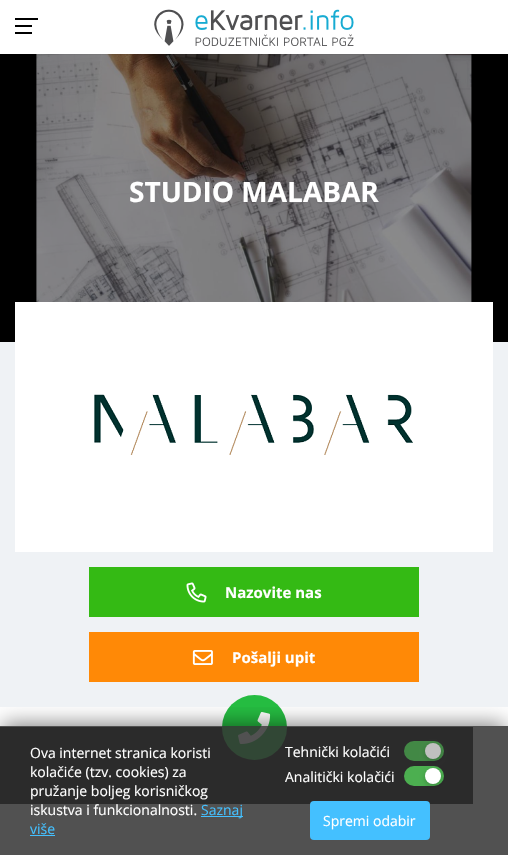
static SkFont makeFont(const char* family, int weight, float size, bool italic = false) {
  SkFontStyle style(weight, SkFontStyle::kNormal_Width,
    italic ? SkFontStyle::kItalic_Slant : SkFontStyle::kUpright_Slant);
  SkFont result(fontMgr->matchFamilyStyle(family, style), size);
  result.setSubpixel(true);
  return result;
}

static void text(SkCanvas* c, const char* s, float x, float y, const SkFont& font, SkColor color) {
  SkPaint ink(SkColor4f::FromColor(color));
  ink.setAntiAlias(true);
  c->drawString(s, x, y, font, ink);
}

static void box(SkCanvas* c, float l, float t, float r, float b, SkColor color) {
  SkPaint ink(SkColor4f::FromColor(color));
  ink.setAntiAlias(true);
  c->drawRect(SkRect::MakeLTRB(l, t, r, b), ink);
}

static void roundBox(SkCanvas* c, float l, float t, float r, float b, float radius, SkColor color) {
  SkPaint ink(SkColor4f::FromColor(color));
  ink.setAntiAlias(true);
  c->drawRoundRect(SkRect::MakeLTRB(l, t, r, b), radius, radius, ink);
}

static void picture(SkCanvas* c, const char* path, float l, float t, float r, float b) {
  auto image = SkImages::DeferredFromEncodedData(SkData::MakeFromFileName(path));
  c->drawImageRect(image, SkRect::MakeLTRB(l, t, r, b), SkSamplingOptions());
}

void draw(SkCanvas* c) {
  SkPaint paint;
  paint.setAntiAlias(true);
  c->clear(0xffffffff);
  box(c, 0, 54, 508, 342, 0xff000000);
  picture(c, "img_02.png", 36, 54, 472, 302);
  paint.setColor(0x4d000000);
  paint.setMaskFilter(SkMaskFilter::MakeBlur(kNormal_SkBlurStyle, 0.5f));
  c->drawRect(SkRect::MakeLTRB(0, 0, 508, 54), paint);
  paint.setMaskFilter(nullptr);
  box(c, 0, 0, 508, 54, 0xffffffff);
  box(c, 15, 25, 32, 27, 0xff000000);
  box(c, 15, 18, 38, 20, 0xff000000);
  box(c, 15, 32, 32, 34, 0xff000000);
  picture(c, "img_01.png", 154, 9, 354, 46);
  SkFont face1 = makeFont("Open Sans", 700, 28);
  text(c, "STUDIO MALABAR", 129, 202, face1, 0xffffffff);
  box(c, 0, 342, 508, 707, 0xffeff2f5);
  box(c, 15, 302, 493, 552, 0xffffffff);
  picture(c, "img_03.png", 94, 394, 413, 455);
  box(c, 89, 567, 419, 617, 0xff34ba14);
  picture(c, "img_04.png", 186, 582, 207, 603);
  SkFont face2 = makeFont("Open Sans", 700, 15);
  text(c, "Nazovite nas", 225, 598, face2, 0xffffffff);
  box(c, 89, 632, 419, 682, 0xffff8906);
  picture(c, "img_05.png", 192, 650, 213, 665);
  text(c, "Pošalji upit", 232, 663, face2, 0xffffffff);
  box(c, 0, 727, 473, 804, 0xff000000);
  paint.setColor(0xff25bc41);
  c->drawCircle(254.5f, 727.5f, 32.5f, paint);
  picture(c, "img_06.png", 238, 712, 271, 744);
  c->save();
  c->clipRect(SkRect::MakeLTRB(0, 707, 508, 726));
  paint.setColor(0x80000000);
  paint.setMaskFilter(SkMaskFilter::MakeBlur(kNormal_SkBlurStyle, 10));
  c->drawRect(SkRect::MakeLTRB(3, 724, 505, 847), paint);
  paint.setMaskFilter(nullptr);
  c->restore();
  box(c, 0, 726, 508, 855, 0xd9333333);
  SkFont face3 = makeFont("Open Sans", 400, 14);
  text(c, "Ova internet stranica koristi", 30, 758, face3, 0xffffffff);
  text(c, "kolačiće (tzv. cookies) za", 30, 777, face3, 0xffffffff);
  text(c, "pružanje boljeg korisničkog", 30, 796, face3, 0xffffffff);
  text(c, "iskustva i funkcionalnosti.", 30, 815, face3, 0xffffffff);
  box(c, 201, 816, 243, 817, 0xff44c0ff);
  text(c, "Saznaj", 201, 815, face3, 0xff44c0ff);
  text(c, "više", 30, 834, face3, 0xff44c0ff);
  box(c, 30, 835, 55, 836, 0xff44c0ff);
  text(c, "Tehnički kolačići", 285, 757, face3, 0xffffffff);
  roundBox(c, 404, 741, 444, 761, 10, 0xff428845);
  paint.setColor(0x330d0d0d);
  paint.setMaskFilter(SkMaskFilter::MakeBlur(kNormal_SkBlurStyle, 2.5f));
  c->drawRoundRect(SkRect::MakeLTRB(425, 745, 441, 761), 8, 8, paint);
  paint.setMaskFilter(nullptr);
  paint.setColor(0xffc0c0c0);
  c->drawCircle(433, 751, 8, paint);
  text(c, "Analitički kolačići", 285, 782, face3, 0xffffffff);
  roundBox(c, 404, 766, 444, 786, 10, 0xff4caf50);
  paint.setColor(0x33000000);
  paint.setMaskFilter(SkMaskFilter::MakeBlur(kNormal_SkBlurStyle, 2.5f));
  c->drawRoundRect(SkRect::MakeLTRB(425, 770, 441, 786), 8, 8, paint);
  paint.setMaskFilter(nullptr);
  paint.setColor(0xffffffff);
  c->drawCircle(433, 776, 8, paint);
  roundBox(c, 310, 801, 430, 840, 4, 0xff44c0ff);
  text(c, "Spremi odabir", 323, 826, face3, 0xffffffff);
}
